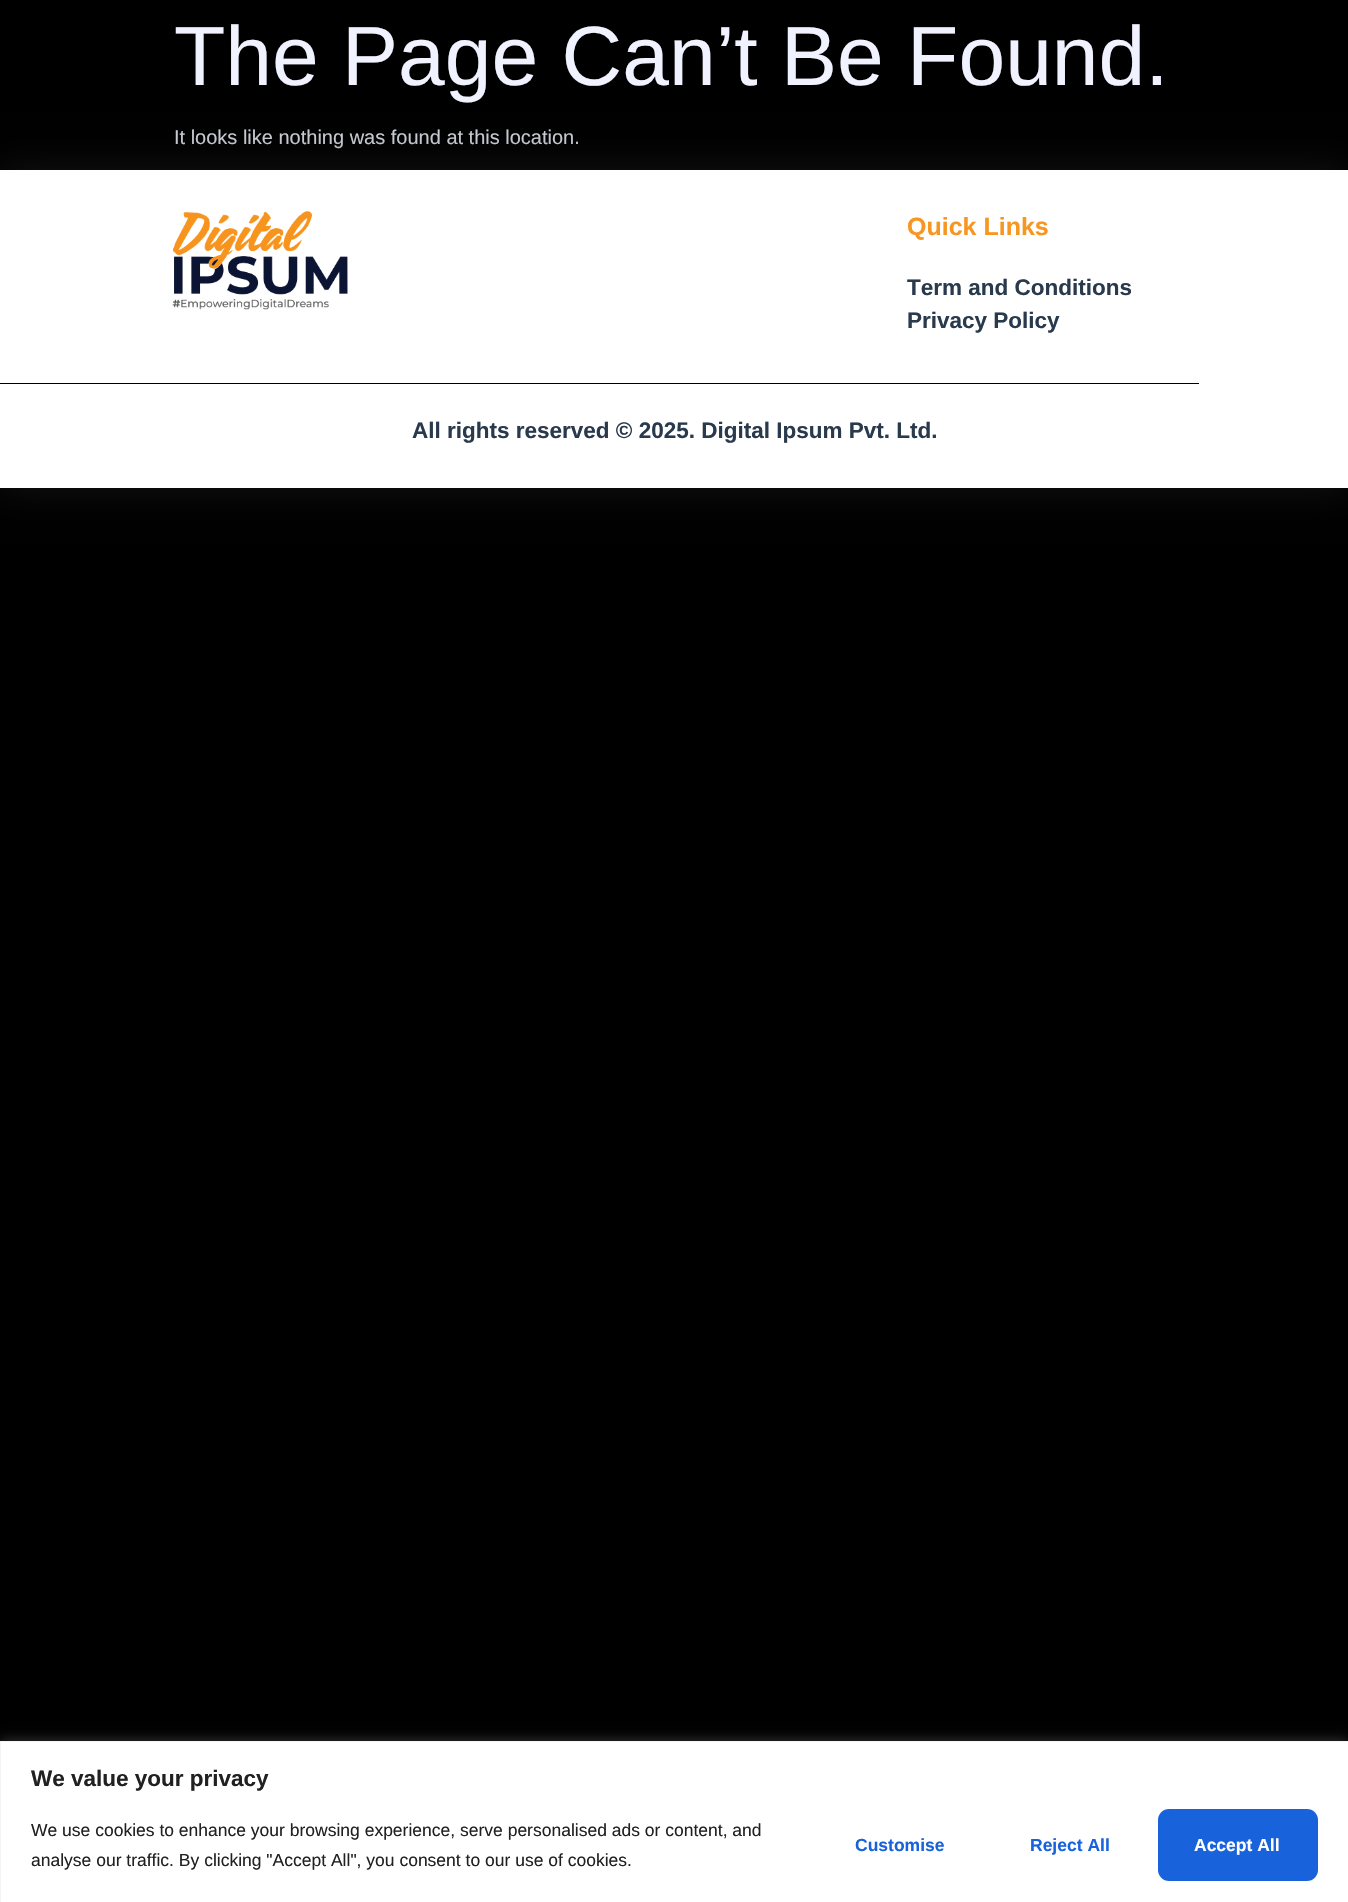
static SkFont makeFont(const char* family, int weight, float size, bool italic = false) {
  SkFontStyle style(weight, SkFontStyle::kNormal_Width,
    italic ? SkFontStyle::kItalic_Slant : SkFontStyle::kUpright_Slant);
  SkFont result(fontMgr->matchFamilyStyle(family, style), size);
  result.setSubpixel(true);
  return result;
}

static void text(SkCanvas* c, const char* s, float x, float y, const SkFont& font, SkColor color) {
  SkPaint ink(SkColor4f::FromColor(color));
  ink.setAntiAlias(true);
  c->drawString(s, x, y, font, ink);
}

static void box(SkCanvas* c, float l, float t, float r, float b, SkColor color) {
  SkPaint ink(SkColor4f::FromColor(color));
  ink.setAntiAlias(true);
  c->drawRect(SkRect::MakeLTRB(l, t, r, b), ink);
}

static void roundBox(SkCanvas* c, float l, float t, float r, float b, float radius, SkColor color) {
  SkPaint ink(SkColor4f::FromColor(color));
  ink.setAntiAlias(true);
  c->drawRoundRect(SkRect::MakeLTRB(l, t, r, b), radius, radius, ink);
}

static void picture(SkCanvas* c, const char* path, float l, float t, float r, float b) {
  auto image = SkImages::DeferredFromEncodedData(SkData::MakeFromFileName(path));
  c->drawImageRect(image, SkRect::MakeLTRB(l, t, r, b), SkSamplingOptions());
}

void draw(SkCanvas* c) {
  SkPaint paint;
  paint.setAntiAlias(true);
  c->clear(0xff000000);
  SkFont face1 = makeFont("Liberation Sans", 400, 84);
  text(c, "The Page Can’t Be Found.", 174, 85, face1, 0xfff1f2ff);
  SkFont face2 = makeFont("Liberation Sans", 400, 20);
  text(c, "It looks like nothing was found at this location.", 174, 144, face2, 0xffcccfd8);
  paint.setColor(0xd61a1818);
  paint.setMaskFilter(SkMaskFilter::MakeBlur(kNormal_SkBlurStyle, 19));
  c->drawRect(SkRect::MakeLTRB(0, 170, 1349, 488), paint);
  paint.setMaskFilter(nullptr);
  box(c, 0, 170, 1348, 488, 0xffffffff);
  picture(c, "img_01.png", 172, 211, 348, 310);
  SkFont face3 = makeFont("Liberation Sans", 700, 25);
  text(c, "Quick Links", 907, 235, face3, 0xfff79621);
  SkFont face4 = makeFont("Liberation Sans", 700, 22.5f);
  text(c, "Term and Conditions", 907, 295, face4, 0xff2a3a4d);
  text(c, "Privacy Policy", 907, 328, face4, 0xff2a3a4d);
  box(c, 0, 383, 1199, 384, 0xff000000);
  text(c, "All rights reserved © 2025. Digital Ipsum Pvt. Ltd.", 412, 438, face4, 0xff2a3a4d);
  paint.setColor(0x4dacabab);
  paint.setMaskFilter(SkMaskFilter::MakeBlur(kNormal_SkBlurStyle, 6));
  c->drawRect(SkRect::MakeLTRB(0, 1740, 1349, 1901), paint);
  paint.setMaskFilter(nullptr);
  paint.setColor(0xffffffff);
  c->drawRect(SkRect::MakeLTRB(0.5f, 1741.5f, 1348.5f, 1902.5f), paint);
  paint.setStyle(SkPaint::kStroke_Style);
  paint.setStrokeWidth(1);
  paint.setColor(0xfff4f4f4);
  c->drawRect(SkRect::MakeLTRB(0.5f, 1741.5f, 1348.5f, 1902.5f), paint);
  text(c, "We value your privacy", 31, 1786, face4, 0xff212121);
  SkFont face5 = makeFont("Liberation Sans", 400, 17.5f);
  text(c, "We use cookies to enhance your browsing experience, serve personalised ads or content, and", 31, 1836, face5, 0xff212121);
  text(c, "analyse our traffic. By clicking \"Accept All\", you consent to our use of cookies.", 31, 1866, face5, 0xff212121);
  SkFont face6 = makeFont("Liberation Sans", 700, 17.5f);
  text(c, "Customise", 855, 1851, face6, 0xff1863dc);
  text(c, "Reject All", 1030, 1851, face6, 0xff1863dc);
  roundBox(c, 1158, 1809, 1318, 1881, 11, 0xff1863dc);
  text(c, "Accept All", 1194, 1851, face6, 0xffffffff);
}
